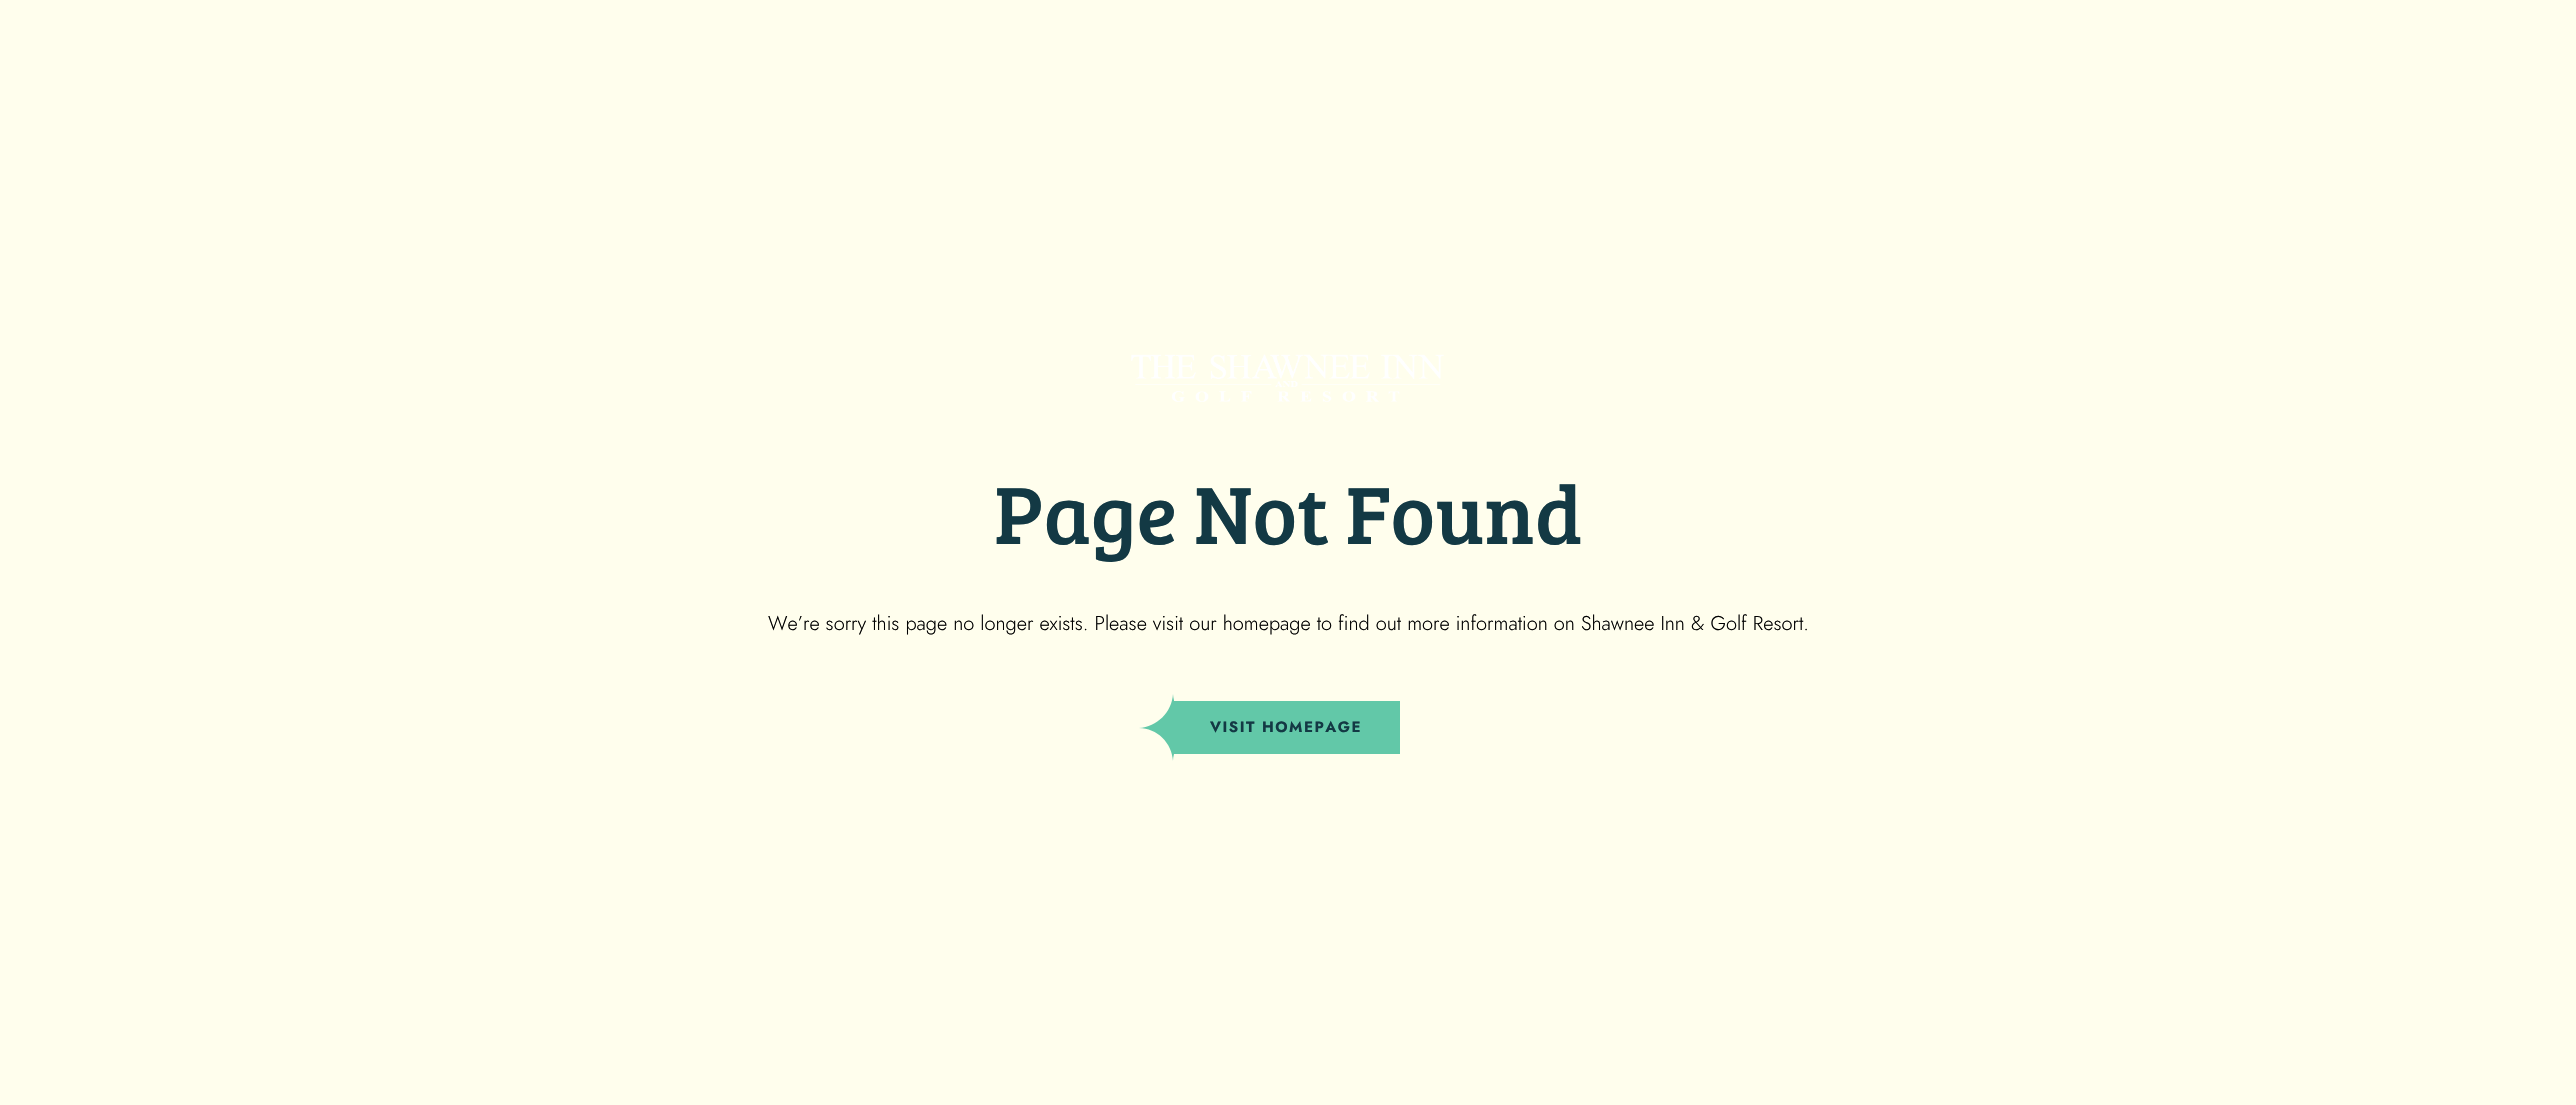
static SkFont makeFont(const char* family, int weight, float size, bool italic = false) {
  SkFontStyle style(weight, SkFontStyle::kNormal_Width,
    italic ? SkFontStyle::kItalic_Slant : SkFontStyle::kUpright_Slant);
  SkFont result(fontMgr->matchFamilyStyle(family, style), size);
  result.setSubpixel(true);
  return result;
}

static void text(SkCanvas* c, const char* s, float x, float y, const SkFont& font, SkColor color) {
  SkPaint ink(SkColor4f::FromColor(color));
  ink.setAntiAlias(true);
  c->drawString(s, x, y, font, ink);
}

static void spacedText(SkCanvas* c, const char* s, float x, float y, const SkFont& font, const SkPaint& ink, float letter, float word) {
  std::vector<SkGlyphID> glyphs(font.countText(s, strlen(s), SkTextEncoding::kUTF8));
  std::vector<float> xs(glyphs.size());
  font.textToGlyphs(s, strlen(s), SkTextEncoding::kUTF8, glyphs);
  font.getXPos(glyphs, xs, x);
  float extra = 0;
  for (size_t i = 0; i < glyphs.size(); i++) {
    xs[i] += extra;
    extra += letter + word * (glyphs[i] == font.unicharToGlyph(' '));
  }
  c->drawTextBlob(SkTextBlob::MakeFromPosHGlyphs(glyphs, xs, y, font), 0, 0, ink);
}

static void box(SkCanvas* c, float l, float t, float r, float b, SkColor color) {
  SkPaint ink(SkColor4f::FromColor(color));
  ink.setAntiAlias(true);
  c->drawRect(SkRect::MakeLTRB(l, t, r, b), ink);
}

static void picture(SkCanvas* c, const char* path, float l, float t, float r, float b) {
  auto image = SkImages::DeferredFromEncodedData(SkData::MakeFromFileName(path));
  c->drawImageRect(image, SkRect::MakeLTRB(l, t, r, b), SkSamplingOptions());
}

void draw(SkCanvas* c) {
  SkPaint paint;
  paint.setAntiAlias(true);
  c->clear(0xfffffeed);
  picture(c, "img_01.png", 1131, 354, 1444, 402);
  SkFont face1 = makeFont("Bree Serif", 400, 83.75f);
  text(c, "Page Not Found", 994, 544, face1, 0xff133944);
  SkFont face2 = makeFont("Jost", 300, 20);
  text(c, "We’re sorry this page no longer exists. Please visit our homepage to find out more information on Shawnee Inn & Golf Resort.", 768, 630, face2, 0xff000000);
  box(c, 1174, 701, 1400, 754, 0xff62c8a8);
  paint.setColor(0xff62c8a8);
  c->drawPath(SkPathBuilder().moveTo(1173, 694).cubicTo(1172, 712, 1157, 727, 1139, 728).cubicTo(1157, 728, 1172, 743, 1173, 761).cubicTo(1174, 743, 1189, 728, 1207, 728).cubicTo(1189, 727, 1174, 712, 1173, 694).close().detach(), paint);
  SkFont face3 = makeFont("Jost", 700, 15);
  paint.setColor(0xff133944);
  spacedText(c, "VISIT HOMEPAGE", 1210, 732, face3, paint, 1.5f, 0);
}
